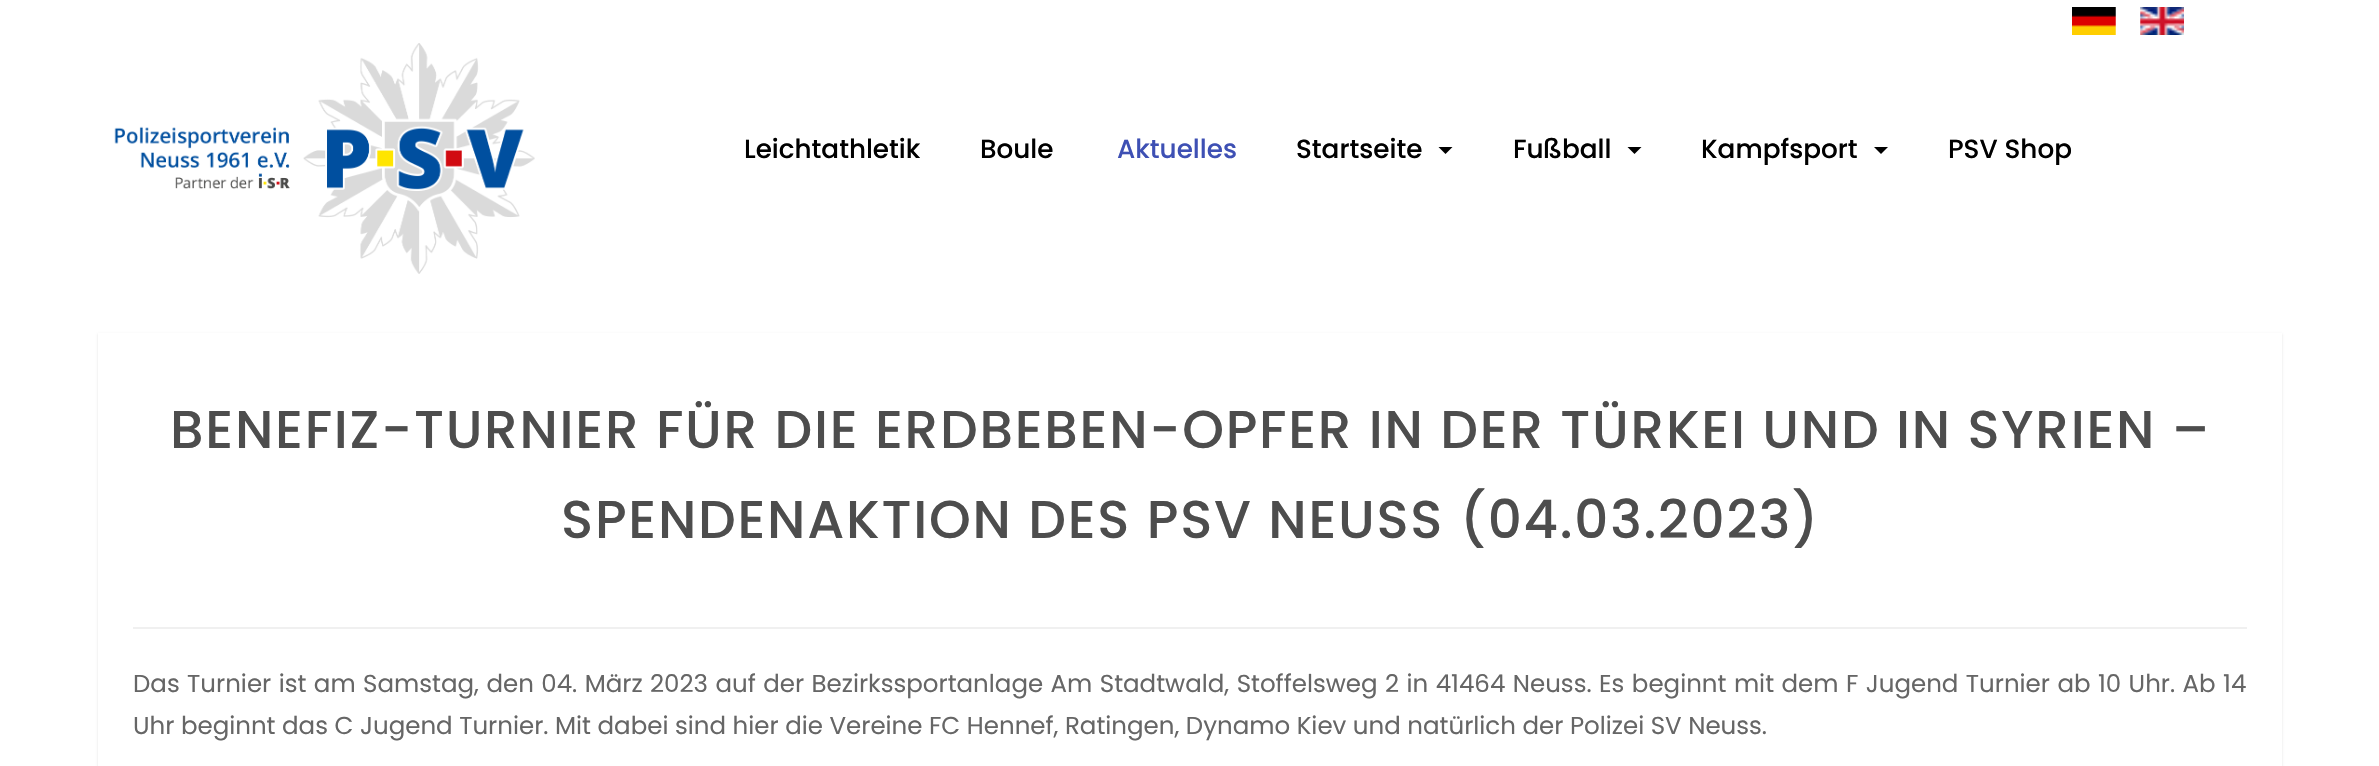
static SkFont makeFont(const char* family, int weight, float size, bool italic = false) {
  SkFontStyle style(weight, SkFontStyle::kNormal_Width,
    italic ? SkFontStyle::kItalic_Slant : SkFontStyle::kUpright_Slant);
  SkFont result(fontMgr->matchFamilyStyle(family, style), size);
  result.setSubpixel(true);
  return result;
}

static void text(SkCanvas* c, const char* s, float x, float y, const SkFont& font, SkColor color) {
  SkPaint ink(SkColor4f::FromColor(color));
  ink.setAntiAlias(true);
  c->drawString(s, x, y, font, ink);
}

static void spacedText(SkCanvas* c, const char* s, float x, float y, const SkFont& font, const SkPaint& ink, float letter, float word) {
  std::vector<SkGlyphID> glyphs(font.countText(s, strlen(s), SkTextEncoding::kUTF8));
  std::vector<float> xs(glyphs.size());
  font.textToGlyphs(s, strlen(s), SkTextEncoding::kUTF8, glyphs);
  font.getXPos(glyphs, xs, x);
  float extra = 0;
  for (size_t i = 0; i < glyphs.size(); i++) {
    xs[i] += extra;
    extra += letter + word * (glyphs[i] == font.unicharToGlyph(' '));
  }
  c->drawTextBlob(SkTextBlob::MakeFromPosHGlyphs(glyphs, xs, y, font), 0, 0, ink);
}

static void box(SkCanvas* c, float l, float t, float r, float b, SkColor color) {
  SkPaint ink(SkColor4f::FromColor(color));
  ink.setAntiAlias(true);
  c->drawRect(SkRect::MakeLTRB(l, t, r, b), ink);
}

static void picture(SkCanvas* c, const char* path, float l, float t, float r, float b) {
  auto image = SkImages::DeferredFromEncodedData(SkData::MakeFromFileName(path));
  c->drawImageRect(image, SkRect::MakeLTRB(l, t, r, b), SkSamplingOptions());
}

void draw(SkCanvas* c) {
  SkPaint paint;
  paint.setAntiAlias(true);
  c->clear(0xffffffff);
  picture(c, "img_01.png", 2072, 7, 2116, 35);
  picture(c, "img_02.png", 2140, 7, 2184, 35);
  picture(c, "img_03.png", 114, 43, 535, 274);
  SkFont face1 = makeFont("Poppins", 500, 26.25f);
  text(c, "Leichtathletik", 744, 158, face1, 0xff000000);
  text(c, "Boule", 980, 158, face1, 0xff000000);
  text(c, "Aktuelles", 1117, 158, face1, 0xff3e50b4);
  text(c, "Startseite", 1296, 158, face1, 0xff000000);
  paint.setColor(0xff000000);
  c->drawPath(SkPathBuilder().moveTo(1438.5f, 147).lineTo(1452.5f, 147).lineTo(1445.5f, 154).close().detach(), paint);
  text(c, "Fußball", 1513, 158, face1, 0xff000000);
  c->drawPath(SkPathBuilder().moveTo(1627.5f, 147).lineTo(1641.5f, 147).lineTo(1634.5f, 154).close().detach(), paint);
  text(c, "Kampfsport", 1701, 158, face1, 0xff000000);
  c->drawPath(SkPathBuilder().moveTo(1874, 147).lineTo(1888, 147).lineTo(1881, 154).close().detach(), paint);
  text(c, "PSV Shop", 1948, 158, face1, 0xff000000);
  paint.setColor(0x1f000000);
  paint.setMaskFilter(SkMaskFilter::MakeBlur(kNormal_SkBlurStyle, 1));
  c->drawRect(SkRect::MakeLTRB(98, 334, 2282, 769), paint);
  paint.setMaskFilter(nullptr);
  box(c, 98, 333, 2282, 766, 0xffffffff);
  box(c, 133, 627, 2247, 629, 0xfff0f0f0);
  SkFont face2 = makeFont("Poppins", 500, 53.2f);
  paint.setColor(0xff4d4d4d);
  spacedText(c, "BENEFIZ-TURNIER FÜR DIE ERDBEBEN-OPFER IN DER TÜRKEI UND IN SYRIEN –", 170, 448, face2, paint, 1.75f, 0);
  spacedText(c, "SPENDENAKTION DES PSV NEUSS (04.03.2023)", 561, 538, face2, paint, 1.75f, 0);
  SkFont face3 = makeFont("Poppins", 400, 24.5f);
  paint.setColor(0xff666666);
  spacedText(c, "Das Turnier ist am Samstag, den 04. März 2023 auf der Bezirkssportanlage Am Stadtwald, Stoffelsweg 2 in 41464 Neuss. Es beginnt mit dem F Jugend Turnier ab 10 Uhr. Ab 14", 133, 692, face3, paint, 0, 0.9f);
  text(c, "Uhr beginnt das C Jugend Turnier. Mit dabei sind hier die Vereine FC Hennef, Ratingen, Dynamo Kiev und natürlich der Polizei SV Neuss.", 133, 734, face3, 0xff666666);
}
